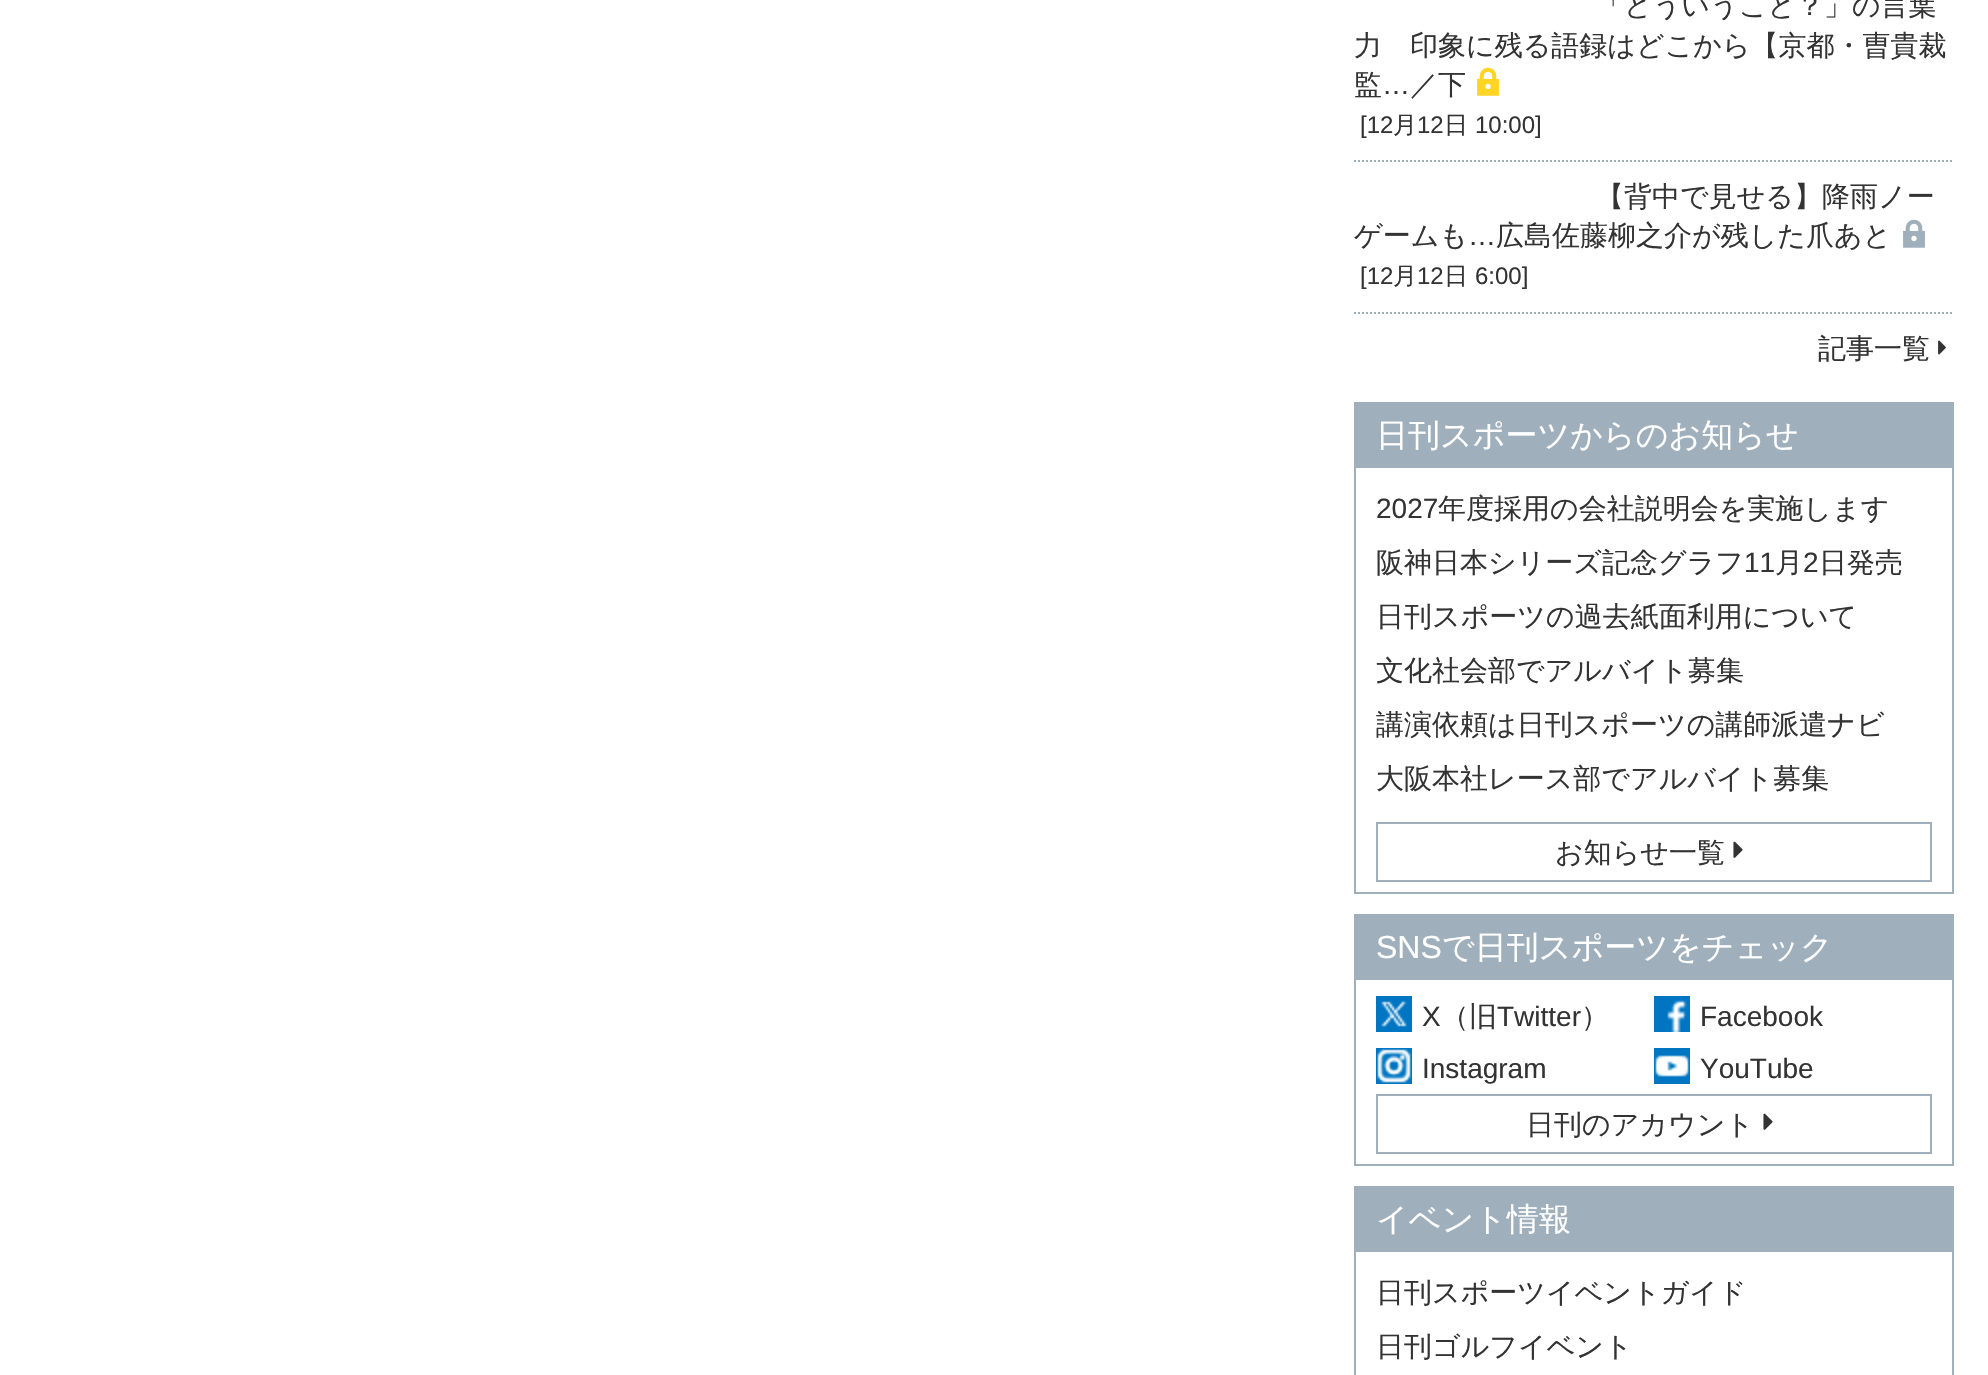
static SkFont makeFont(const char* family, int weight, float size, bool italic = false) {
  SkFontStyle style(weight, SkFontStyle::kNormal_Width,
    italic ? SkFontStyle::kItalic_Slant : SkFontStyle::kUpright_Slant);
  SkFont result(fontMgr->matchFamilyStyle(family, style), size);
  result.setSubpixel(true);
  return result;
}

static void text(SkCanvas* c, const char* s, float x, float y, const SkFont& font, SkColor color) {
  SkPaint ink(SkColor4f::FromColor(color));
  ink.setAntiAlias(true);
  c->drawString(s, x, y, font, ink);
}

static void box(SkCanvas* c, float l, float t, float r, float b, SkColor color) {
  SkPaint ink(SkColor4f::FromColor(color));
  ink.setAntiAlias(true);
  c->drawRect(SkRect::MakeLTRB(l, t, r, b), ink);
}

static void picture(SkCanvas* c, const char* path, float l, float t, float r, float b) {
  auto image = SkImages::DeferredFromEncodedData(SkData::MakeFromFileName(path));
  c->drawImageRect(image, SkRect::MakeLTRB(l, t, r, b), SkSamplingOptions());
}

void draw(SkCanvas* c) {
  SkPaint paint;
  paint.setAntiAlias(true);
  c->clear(0xffffffff);
  paint.setStyle(SkPaint::kStroke_Style);
  paint.setStrokeWidth(2);
  paint.setColor(0xff9fb0bc);
  paint.setPathEffect(SkDashPathEffect::Make({{2, 2}}, 0));
  c->drawPath(SkPathBuilder().moveTo(1354, 161).lineTo(1954, 161).detach(), paint);
  paint.setPathEffect(nullptr);
  SkFont face1 = makeFont("WenQuanYi Zen Hei", 500, 28);
  text(c, "「どういうこと？」の言葉", 1596, 15, face1, 0xff333333);
  text(c, "力　印象に残る語録はどこから【京都・曺貴裁", 1354, 55, face1, 0xff333333);
  text(c, "監", 1354, 94, face1, 0xff333333);
  SkFont face2 = makeFont("Liberation Sans", 400, 28);
  text(c, "…", 1382, 94, face2, 0xff333333);
  text(c, "／下", 1410, 94, face1, 0xff333333);
  picture(c, "img_01.png", 1477, 67, 1499, 96);
  SkFont face3 = makeFont("Liberation Sans", 400, 24);
  text(c, "[12", 1360, 133, face3, 0xff333333);
  SkFont face4 = makeFont("WenQuanYi Zen Hei", 500, 24);
  text(c, "月", 1393, 133, face4, 0xff333333);
  text(c, "12", 1417, 133, face3, 0xff333333);
  text(c, "日", 1444, 133, face4, 0xff333333);
  text(c, "10:00]", 1475, 133, face3, 0xff333333);
  paint.setPathEffect(SkDashPathEffect::Make({{2, 2}}, 0));
  c->drawPath(SkPathBuilder().moveTo(1354, 313).lineTo(1954, 313).detach(), paint);
  paint.setPathEffect(nullptr);
  text(c, "【背中で見せる】降雨ノー", 1596, 206, face1, 0xff333333);
  text(c, "ゲームも", 1354, 245, face1, 0xff333333);
  text(c, "…", 1468, 245, face2, 0xff333333);
  text(c, "広島佐藤柳之介が残した爪あと", 1496, 245, face1, 0xff333333);
  picture(c, "img_02.png", 1903, 219, 1925, 248);
  text(c, "[12", 1360, 284, face3, 0xff333333);
  text(c, "月", 1393, 284, face4, 0xff333333);
  text(c, "12", 1417, 284, face3, 0xff333333);
  text(c, "日", 1444, 284, face4, 0xff333333);
  text(c, "6:00]", 1475, 284, face3, 0xff333333);
  text(c, "記事一覧", 1818, 358, face1, 0xff333333);
  picture(c, "img_03.png", 1938, 340, 1946, 355);
  c->drawRect(SkRect::MakeLTRB(1355, 403, 1953, 893), paint);
  box(c, 1356, 404, 1952, 468, 0xff9fb0bc);
  SkFont face5 = makeFont("WenQuanYi Zen Hei", 500, 32);
  text(c, "日刊スポーツからのお知らせ", 1376, 446, face5, 0xffffffff);
  text(c, "2027", 1376, 518, face2, 0xff333333);
  text(c, "年度採用の会社説明会を実施します", 1438, 518, face1, 0xff333333);
  text(c, "阪神日本シリーズ記念グラフ", 1376, 572, face1, 0xff333333);
  text(c, "11", 1744, 572, face2, 0xff333333);
  text(c, "月", 1775, 572, face1, 0xff333333);
  text(c, "2", 1803, 572, face2, 0xff333333);
  text(c, "日発売", 1819, 572, face1, 0xff333333);
  text(c, "日刊スポーツの過去紙面利用について", 1376, 626, face1, 0xff333333);
  text(c, "文化社会部でアルバイト募集", 1376, 680, face1, 0xff333333);
  text(c, "講演依頼は日刊スポーツの講師派遣ナビ", 1376, 734, face1, 0xff333333);
  text(c, "大阪本社レース部でアルバイト募集", 1376, 788, face1, 0xff333333);
  c->drawRect(SkRect::MakeLTRB(1377, 823, 1931, 881), paint);
  text(c, "お知らせ一覧", 1555, 862, face1, 0xff333333);
  picture(c, "img_04.png", 1733, 841, 1743, 858);
  c->drawRect(SkRect::MakeLTRB(1355, 915, 1953, 1165), paint);
  box(c, 1356, 916, 1952, 980, 0xff9fb0bc);
  SkFont face6 = makeFont("Liberation Sans", 400, 32);
  text(c, "SNS", 1376, 958, face6, 0xffffffff);
  text(c, "で日刊スポーツをチェック", 1442, 958, face5, 0xffffffff);
  picture(c, "img_05.png", 1376, 996, 1412, 1032);
  text(c, "X", 1422, 1026, face2, 0xff333333);
  text(c, "（旧", 1441, 1026, face1, 0xff333333);
  text(c, "Twitter", 1497, 1026, face2, 0xff333333);
  text(c, "）", 1581, 1026, face1, 0xff333333);
  picture(c, "img_06.png", 1654, 996, 1690, 1032);
  text(c, "Facebook", 1700, 1026, face2, 0xff333333);
  picture(c, "img_07.png", 1376, 1048, 1412, 1084);
  text(c, "Instagram", 1422, 1078, face2, 0xff333333);
  picture(c, "img_08.png", 1654, 1048, 1690, 1084);
  text(c, "YouTube", 1700, 1078, face2, 0xff333333);
  c->drawRect(SkRect::MakeLTRB(1377, 1095, 1931, 1153), paint);
  text(c, "日刊のアカウント", 1526, 1134, face1, 0xff333333);
  picture(c, "img_04.png", 1763, 1113, 1773, 1130);
  c->drawRect(SkRect::MakeLTRB(1355, 1187, 1953, 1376), paint);
  box(c, 1356, 1188, 1952, 1252, 0xff9fb0bc);
  text(c, "イベント情報", 1376, 1230, face5, 0xffffffff);
  text(c, "日刊スポーツイベントガイド", 1376, 1302, face1, 0xff333333);
  text(c, "日刊ゴルフイベント", 1376, 1356, face1, 0xff333333);
}
